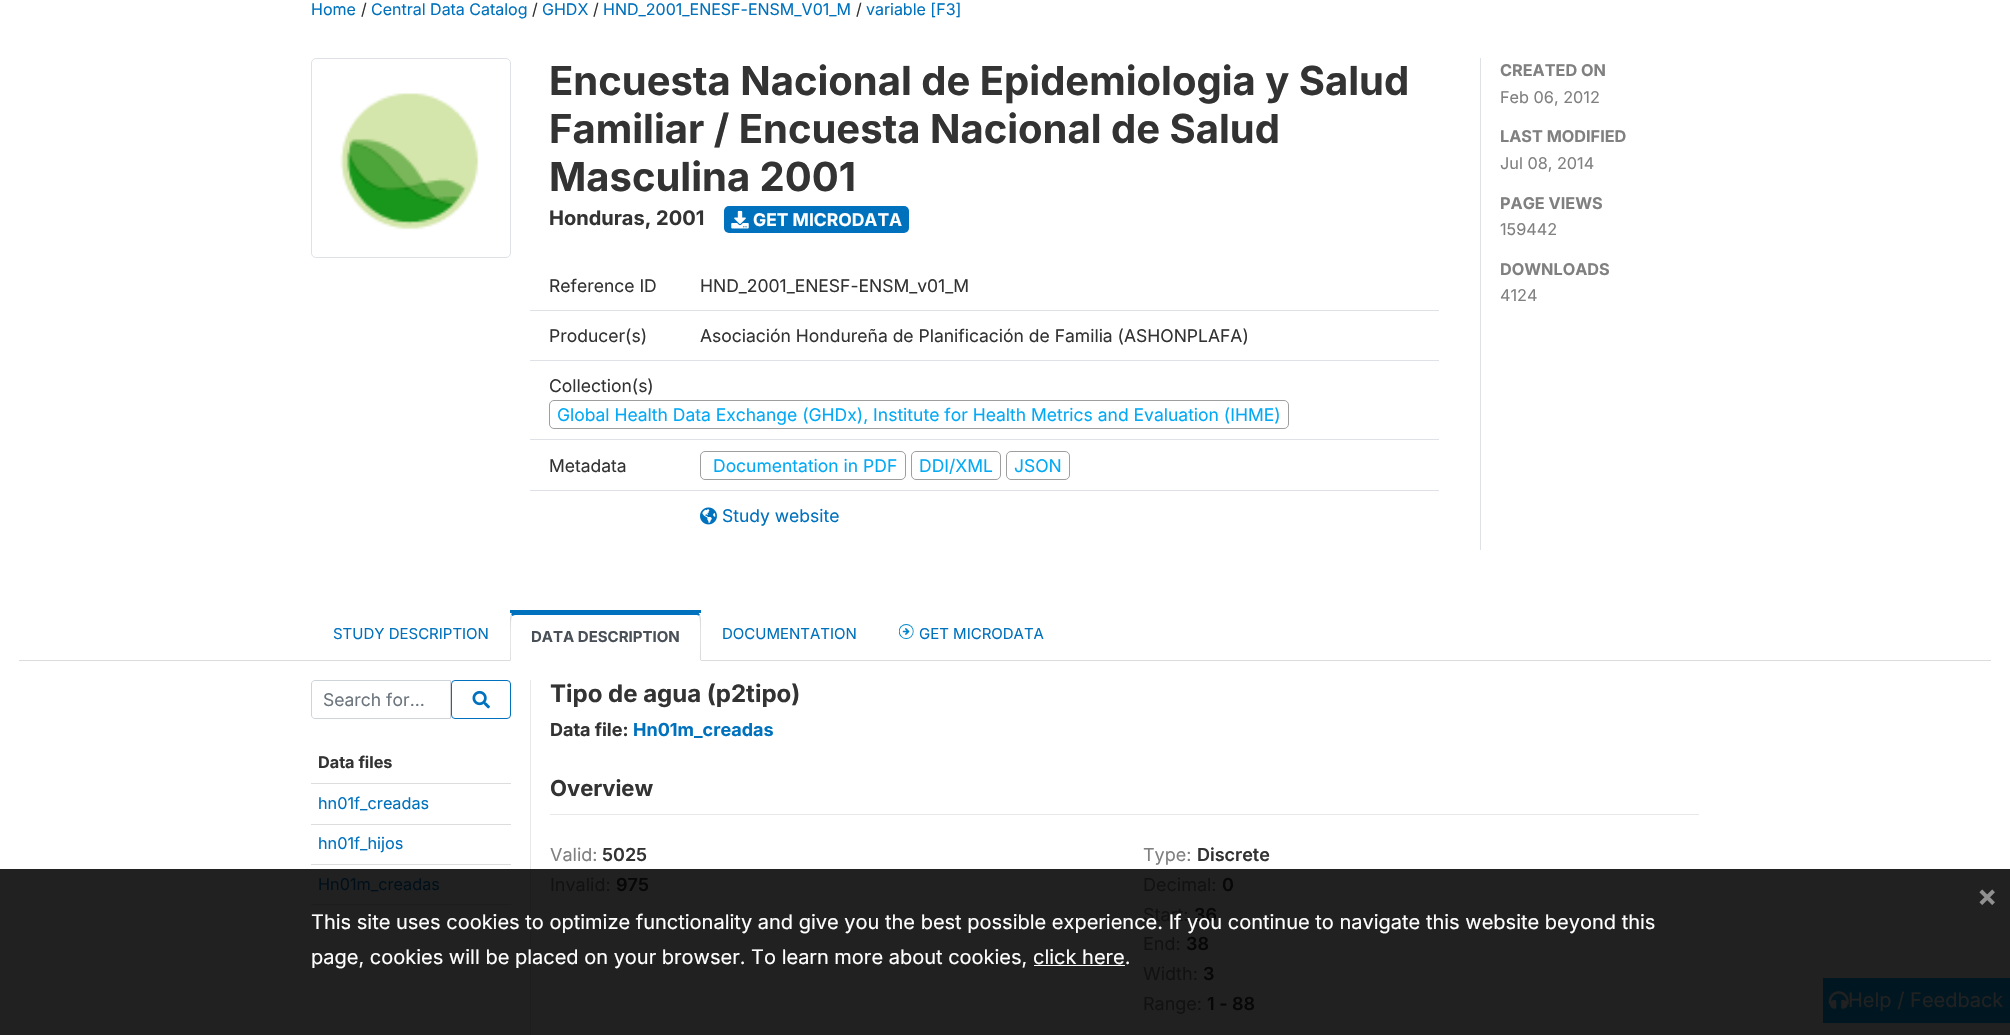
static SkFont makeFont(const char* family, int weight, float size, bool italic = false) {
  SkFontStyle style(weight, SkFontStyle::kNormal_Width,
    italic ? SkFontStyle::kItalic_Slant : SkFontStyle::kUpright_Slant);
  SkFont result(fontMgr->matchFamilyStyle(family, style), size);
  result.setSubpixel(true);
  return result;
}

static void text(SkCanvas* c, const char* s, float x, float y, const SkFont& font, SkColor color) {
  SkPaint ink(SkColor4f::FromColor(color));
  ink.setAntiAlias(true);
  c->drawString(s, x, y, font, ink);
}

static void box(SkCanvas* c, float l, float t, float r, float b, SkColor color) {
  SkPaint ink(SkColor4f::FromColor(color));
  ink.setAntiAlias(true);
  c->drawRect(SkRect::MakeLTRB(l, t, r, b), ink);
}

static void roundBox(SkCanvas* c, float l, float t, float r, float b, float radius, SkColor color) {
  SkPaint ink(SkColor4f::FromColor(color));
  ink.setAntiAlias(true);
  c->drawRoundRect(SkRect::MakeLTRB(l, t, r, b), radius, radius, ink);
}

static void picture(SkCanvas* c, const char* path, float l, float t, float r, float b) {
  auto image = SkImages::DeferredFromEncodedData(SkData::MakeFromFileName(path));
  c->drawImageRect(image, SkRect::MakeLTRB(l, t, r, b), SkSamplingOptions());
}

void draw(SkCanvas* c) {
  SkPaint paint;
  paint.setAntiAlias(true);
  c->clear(0xffffffff);
  box(c, 0, 869, 2010, 1035, 0xff212121);
  SkFont face1 = makeFont("Inter", 400, 16);
  text(c, "Home", 311, 15, face1, 0xff0071bd);
  text(c, "/", 361, 15, face1, 0xff333333);
  text(c, "Central Data Catalog", 371, 15, face1, 0xff0071bd);
  text(c, "/", 532, 15, face1, 0xff333333);
  text(c, "GHDX", 542, 15, face1, 0xff0071bd);
  text(c, "/", 593, 15, face1, 0xff333333);
  text(c, "HND_2001_ENESF-ENSM_V01_M", 603, 15, face1, 0xff0071bd);
  text(c, "/", 856, 15, face1, 0xff333333);
  text(c, "variable [F3]", 866, 15, face1, 0xff0071bd);
  box(c, 19, 660, 1991, 661, 0xffdcdcdc);
  paint.setStyle(SkPaint::kStroke_Style);
  paint.setStrokeWidth(1);
  paint.setColor(0xffdee2e6);
  c->drawRoundRect(SkRect::MakeLTRB(311.5f, 58.5f, 510.5f, 257.5f), 4.5f, 4.5f, paint);
  picture(c, "img_01.png", 340, 93, 479, 230);
  SkFont face2 = makeFont("Inter", 700, 40);
  text(c, "Encuesta Nacional de Epidemiologia y Salud", 549, 95, face2, 0xff333333);
  text(c, "Familiar / Encuesta Nacional de Salud", 549, 143, face2, 0xff333333);
  text(c, "Masculina 2001", 549, 191, face2, 0xff333333);
  SkFont face3 = makeFont("Inter", 700, 20);
  text(c, "Honduras, 2001", 549, 225, face3, 0xff333333);
  roundBox(c, 724, 206, 909, 233, 5, 0xff0071bd);
  picture(c, "img_02.png", 731, 210, 749, 229);
  SkFont face4 = makeFont("Inter", 700, 17.5f);
  text(c, "GET MICRODATA", 753, 226, face4, 0xffffffff);
  box(c, 530, 310, 1439, 311, 0xffdee2e6);
  SkFont face5 = makeFont("Inter", 400, 17.5f);
  text(c, "Reference ID", 549, 292, face5, 0xff333333);
  text(c, "HND_2001_ENESF-ENSM_v01_M", 700, 292, face5, 0xff333333);
  box(c, 530, 360, 1439, 361, 0xffdee2e6);
  text(c, "Producer(s)", 549, 342, face5, 0xff333333);
  text(c, "Asociación Hondureña de Planificación de Familia (ASHONPLAFA)", 700, 342, face5, 0xff333333);
  box(c, 530, 439, 1439, 440, 0xffdee2e6);
  text(c, "Collection(s)", 549, 392, face5, 0xff333333);
  paint.setColor(0xff9e9e9e);
  c->drawRoundRect(SkRect::MakeLTRB(549.5f, 400.5f, 1288.5f, 428.5f), 4.5f, 4.5f, paint);
  text(c, "Global Health Data Exchange (GHDx), Institute for Health Metrics and Evaluation (IHME)", 557, 421, face5, 0xff03a9f4);
  box(c, 530, 490, 1439, 491, 0xffdee2e6);
  text(c, "Metadata", 549, 472, face5, 0xff333333);
  c->drawRoundRect(SkRect::MakeLTRB(700.5f, 451.5f, 905.5f, 479.5f), 4.5f, 4.5f, paint);
  text(c, "Documentation in PDF", 713, 472, face5, 0xff03a9f4);
  c->drawRoundRect(SkRect::MakeLTRB(911.5f, 451.5f, 1000.5f, 479.5f), 4.5f, 4.5f, paint);
  text(c, "DDI/XML", 919, 472, face5, 0xff03a9f4);
  c->drawRoundRect(SkRect::MakeLTRB(1006.5f, 451.5f, 1069.5f, 479.5f), 4.5f, 4.5f, paint);
  text(c, "JSON", 1014, 472, face5, 0xff03a9f4);
  picture(c, "img_03.png", 700, 507, 717, 525);
  text(c, "Study website", 722, 522, face5, 0xff0071bd);
  box(c, 1480, 58, 1481, 550, 0xffdee2e6);
  SkFont face6 = makeFont("Inter", 700, 16.25f);
  text(c, "CREATED ON", 1500, 76, face6, 0xff808080);
  SkFont face7 = makeFont("Inter", 400, 16.25f);
  text(c, "Feb 06, 2012", 1500, 103, face7, 0xff808080);
  text(c, "LAST MODIFIED", 1500, 142, face6, 0xff808080);
  text(c, "Jul 08, 2014", 1500, 169, face7, 0xff808080);
  text(c, "PAGE VIEWS", 1500, 209, face6, 0xff808080);
  text(c, "159442", 1500, 235, face7, 0xff808080);
  text(c, "DOWNLOADS", 1500, 275, face6, 0xff808080);
  text(c, "4124", 1500, 301, face7, 0xff808080);
  SkFont face8 = makeFont("Inter", 400, 15);
  text(c, "STUDY DESCRIPTION", 333, 639, face8, 0xff0071bd);
  box(c, 510, 660, 701, 661, 0xffffffff);
  box(c, 510, 610, 701, 613, 0xff0071bc);
  paint.setStyle(SkPaint::kFill_Style);
  paint.setColor(0xff0071bc);
  c->drawPath(SkPathBuilder().moveTo(515, 615).lineTo(512, 616).lineTo(511, 614).lineTo(513, 612).lineTo(698, 612).lineTo(700, 615).lineTo(699, 616).cubicTo(699, 615, 697, 615, 696, 615).close().detach(), paint);
  paint.setColor(0xffdcdcdc);
  c->drawPath(SkPathBuilder().moveTo(700, 615).lineTo(701, 618).lineTo(701, 661).lineTo(700, 660).cubicTo(700, 655, 701, 618, 699, 616).close().detach(), paint);
  paint.setColor(0xffffffff);
  c->drawPath(SkPathBuilder().moveTo(701, 661).lineTo(700, 660).lineTo(511, 660).lineTo(510, 661).close().detach(), paint);
  paint.setColor(0xffdcdcdc);
  c->drawPath(SkPathBuilder().moveTo(510, 618).lineTo(510, 661).lineTo(511, 660).cubicTo(511, 655, 510, 618, 512, 616).lineTo(511, 614).close().detach(), paint);
  SkFont face9 = makeFont("Inter", 700, 15);
  text(c, "DATA DESCRIPTION", 531, 642, face9, 0xff495057);
  text(c, "DOCUMENTATION", 722, 639, face8, 0xff0071bd);
  picture(c, "img_04.png", 899, 624, 914, 639);
  text(c, "GET MICRODATA", 919, 639, face8, 0xff0071bd);
  paint.setStyle(SkPaint::kStroke_Style);
  paint.setColor(0xffced4da);
  c->drawPath(SkPathBuilder().moveTo(315, 680.5f).lineTo(450.5f, 680.5f).lineTo(450.5f, 718.5f).lineTo(315, 718.5f).cubicTo(313, 718.5f, 311.5f, 717, 311.5f, 715).lineTo(311.5f, 684).cubicTo(311.5f, 682, 313, 680.5f, 315, 680.5f).close().detach(), paint);
  text(c, "Search for...", 323, 706, face5, 0xff6c757d);
  paint.setColor(0xff0071bd);
  c->drawRoundRect(SkRect::MakeLTRB(451.5f, 680.5f, 510.5f, 718.5f), 3.5f, 3.5f, paint);
  picture(c, "img_05.png", 472, 690, 490, 709);
  text(c, "Data files", 318, 768, face6, 0xff333333);
  box(c, 311, 783, 511, 784, 0xffdddddd);
  text(c, "hn01f_creadas", 318, 809, face7, 0xff0071bd);
  box(c, 311, 824, 511, 825, 0xffdddddd);
  text(c, "hn01f_hijos", 318, 849, face7, 0xff0071bd);
  box(c, 311, 864, 511, 865, 0xffdddddd);
  box(c, 311, 904, 511, 905, 0xff1d1d1d);
  text(c, "Hn01m_creadas", 318, 890, face7, 0xff000f19);
  box(c, 530, 680, 531, 869, 0xffe8e8e8);
  box(c, 530, 869, 531, 1035, 0xff1e1e1e);
  SkFont face10 = makeFont("Inter", 700, 24);
  text(c, "Tipo de agua (p2tipo)", 550, 702, face10, 0xff333333);
  SkFont face11 = makeFont("Inter", 700, 18);
  text(c, "Data file:", 550, 736, face11, 0xff333333);
  text(c, "Hn01m_creadas", 633, 736, face11, 0xff0071bd);
  box(c, 550, 814, 1699, 815, 0xffe8e8e8);
  SkFont face12 = makeFont("Inter", 700, 22);
  text(c, "Overview", 550, 796, face12, 0xff333333);
  SkFont face13 = makeFont("Inter", 400, 18);
  text(c, "Valid:", 550, 861, face13, 0xff808080);
  SkFont face14 = makeFont("Inter", 600, 18);
  text(c, "5025", 602, 861, face14, 0xff333333);
  text(c, "Invalid:", 550, 891, face13, 0xff111111);
  text(c, "975", 616, 891, face14, 0xff070707);
  text(c, "Type:", 1143, 861, face13, 0xff808080);
  text(c, "Discrete", 1197, 861, face14, 0xff333333);
  text(c, "Decimal:", 1143, 891, face13, 0xff111111);
  text(c, "0", 1222, 891, face14, 0xff070707);
  text(c, "Start:", 1143, 921, face13, 0xff111111);
  text(c, "36", 1194, 921, face14, 0xff070707);
  text(c, "End:", 1143, 950, face13, 0xff111111);
  text(c, "38", 1186, 950, face14, 0xff070707);
  text(c, "Width:", 1143, 980, face13, 0xff111111);
  text(c, "3", 1203, 980, face14, 0xff070707);
  text(c, "Range:", 1143, 1010, face13, 0xff111111);
  text(c, "1 - 88", 1207, 1010, face14, 0xff070707);
  SkFont face15 = makeFont("Inter", 700, 30);
  text(c, "×", 1977, 906, face15, 0xff909090);
  SkFont face16 = makeFont("Inter", 400, 20);
  text(c, "This site uses cookies to optimize functionality and give you the best possible experience. If you continue to navigate this website beyond this", 311, 929, face16, 0xffffffff);
  text(c, "page, cookies will be placed on your browser. To learn more about cookies, click here.", 311, 964, face16, 0xffffffff);
  box(c, 1034, 965, 1125, 966, 0xffffffff);
  box(c, 1823, 978, 2010, 1023, 0xff001620);
  picture(c, "img_06.png", 1828, 991, 1849, 1009);
  text(c, "Help / Feedback", 1848, 1007, face16, 0xff212121);
}
